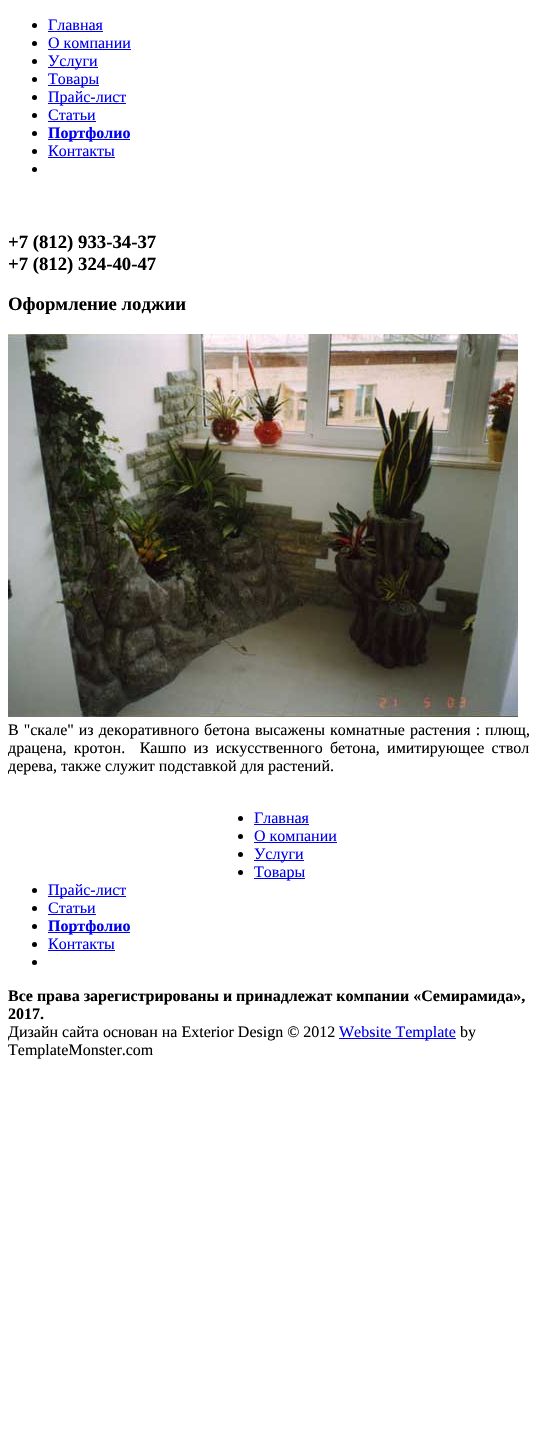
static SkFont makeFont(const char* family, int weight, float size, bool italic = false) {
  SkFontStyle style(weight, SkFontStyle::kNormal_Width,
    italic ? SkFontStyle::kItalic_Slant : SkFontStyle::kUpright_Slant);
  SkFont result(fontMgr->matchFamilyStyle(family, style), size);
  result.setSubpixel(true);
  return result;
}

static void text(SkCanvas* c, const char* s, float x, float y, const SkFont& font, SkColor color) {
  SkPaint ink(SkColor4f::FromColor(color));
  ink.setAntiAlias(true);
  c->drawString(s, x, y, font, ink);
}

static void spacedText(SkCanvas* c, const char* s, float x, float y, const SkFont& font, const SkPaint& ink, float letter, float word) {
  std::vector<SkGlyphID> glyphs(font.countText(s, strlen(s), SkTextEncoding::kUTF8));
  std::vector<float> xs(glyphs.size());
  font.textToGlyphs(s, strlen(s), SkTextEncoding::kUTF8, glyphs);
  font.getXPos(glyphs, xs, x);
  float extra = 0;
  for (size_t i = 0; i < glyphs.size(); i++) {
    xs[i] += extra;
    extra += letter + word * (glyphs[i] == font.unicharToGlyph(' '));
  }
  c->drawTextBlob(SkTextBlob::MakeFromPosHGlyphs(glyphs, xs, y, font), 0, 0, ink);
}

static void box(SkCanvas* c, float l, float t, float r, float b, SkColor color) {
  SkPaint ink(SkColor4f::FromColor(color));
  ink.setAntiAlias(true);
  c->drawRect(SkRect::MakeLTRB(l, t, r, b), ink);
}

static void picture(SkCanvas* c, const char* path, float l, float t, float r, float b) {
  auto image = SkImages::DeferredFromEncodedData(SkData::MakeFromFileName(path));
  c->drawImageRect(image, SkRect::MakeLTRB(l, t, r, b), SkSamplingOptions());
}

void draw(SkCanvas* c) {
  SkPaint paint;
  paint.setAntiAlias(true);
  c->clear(0xffffffff);
  paint.setColor(0xff000000);
  c->drawCircle(34.5f, 25.5f, 2.5f, paint);
  SkFont face1 = makeFont("Liberation Serif", 400, 16);
  text(c, "Главная", 48, 30, face1, 0xff0000ee);
  box(c, 48, 31, 103, 32, 0xff0000ee);
  c->drawCircle(34.5f, 43.5f, 2.5f, paint);
  text(c, "О компании", 48, 48, face1, 0xff0000ee);
  box(c, 48, 49, 131, 50, 0xff0000ee);
  c->drawCircle(34.5f, 61.5f, 2.5f, paint);
  box(c, 48, 67, 98, 68, 0xff0000ee);
  text(c, "Услуги", 48, 66, face1, 0xff0000ee);
  c->drawCircle(34.5f, 79.5f, 2.5f, paint);
  box(c, 48, 85, 99, 86, 0xff0000ee);
  text(c, "Товары", 48, 84, face1, 0xff0000ee);
  c->drawCircle(34.5f, 97.5f, 2.5f, paint);
  box(c, 48, 103, 126, 104, 0xff0000ee);
  text(c, "Прайс-лист", 48, 102, face1, 0xff0000ee);
  c->drawCircle(34.5f, 115.5f, 2.5f, paint);
  text(c, "Статьи", 48, 120, face1, 0xff0000ee);
  box(c, 48, 121, 96, 122, 0xff0000ee);
  c->drawCircle(34.5f, 133.5f, 2.5f, paint);
  box(c, 48, 139, 130, 140, 0xff0000ee);
  SkFont face2 = makeFont("Liberation Serif", 700, 16);
  text(c, "Портфолио", 48, 138, face2, 0xff0000ee);
  c->drawCircle(34.5f, 151.5f, 2.5f, paint);
  text(c, "Контакты", 48, 156, face1, 0xff0000ee);
  box(c, 48, 157, 115, 158, 0xff0000ee);
  c->drawCircle(34.5f, 169.5f, 2.5f, paint);
  SkFont face3 = makeFont("Liberation Serif", 700, 18.75f);
  text(c, "+7 (812) 933-34-37", 8, 248, face3, 0xff000000);
  text(c, "+7 (812) 324-40-47", 8, 270, face3, 0xff000000);
  text(c, "Оформление лоджии", 8, 310, face3, 0xff000000);
  picture(c, "img_01.png", 8, 334, 518, 717);
  spacedText(c, "В \"скале\" из декоративного бетона высажены комнатные растения : плющ,", 8, 735, face1, paint, 0, 1);
  spacedText(c, "драцена, кротон.  Кашпо из искусственного бетона, имитирующее ствол", 8, 753, face1, paint, 0, 3.25f);
  text(c, "дерева, также служит подставкой для растений.", 8, 771, face1, 0xff000000);
  c->drawCircle(240.5f, 818.5f, 2.5f, paint);
  text(c, "Главная", 254, 823, face1, 0xff0000ee);
  box(c, 254, 824, 309, 825, 0xff0000ee);
  c->drawCircle(240.5f, 836.5f, 2.5f, paint);
  text(c, "О компании", 254, 841, face1, 0xff0000ee);
  box(c, 254, 842, 337, 843, 0xff0000ee);
  c->drawCircle(240.5f, 854.5f, 2.5f, paint);
  box(c, 254, 860, 304, 861, 0xff0000ee);
  text(c, "Услуги", 254, 859, face1, 0xff0000ee);
  c->drawCircle(240.5f, 872.5f, 2.5f, paint);
  box(c, 254, 878, 305, 879, 0xff0000ee);
  text(c, "Товары", 254, 877, face1, 0xff0000ee);
  c->drawCircle(34.5f, 890.5f, 2.5f, paint);
  box(c, 48, 896, 126, 897, 0xff0000ee);
  text(c, "Прайс-лист", 48, 895, face1, 0xff0000ee);
  c->drawCircle(34.5f, 908.5f, 2.5f, paint);
  text(c, "Статьи", 48, 913, face1, 0xff0000ee);
  box(c, 48, 914, 96, 915, 0xff0000ee);
  c->drawCircle(34.5f, 926.5f, 2.5f, paint);
  box(c, 48, 932, 130, 933, 0xff0000ee);
  text(c, "Портфолио", 48, 931, face2, 0xff0000ee);
  c->drawCircle(34.5f, 944.5f, 2.5f, paint);
  text(c, "Контакты", 48, 949, face1, 0xff0000ee);
  box(c, 48, 950, 115, 951, 0xff0000ee);
  c->drawCircle(34.5f, 962.5f, 2.5f, paint);
  text(c, "Все права зарегистрированы и принадлежат компании «Семирамида»,", 8, 1001, face2, 0xff000000);
  text(c, "2017.", 8, 1019, face2, 0xff000000);
  text(c, "Дизайн сайта основан на Exterior Design © 2012", 8, 1037, face1, 0xff000000);
  box(c, 339, 1038, 456, 1039, 0xff0000ee);
  text(c, "Website Template", 339, 1037, face1, 0xff0000ee);
  text(c, "by", 460, 1037, face1, 0xff000000);
  text(c, "TemplateMonster.com", 8, 1055, face1, 0xff000000);
}
